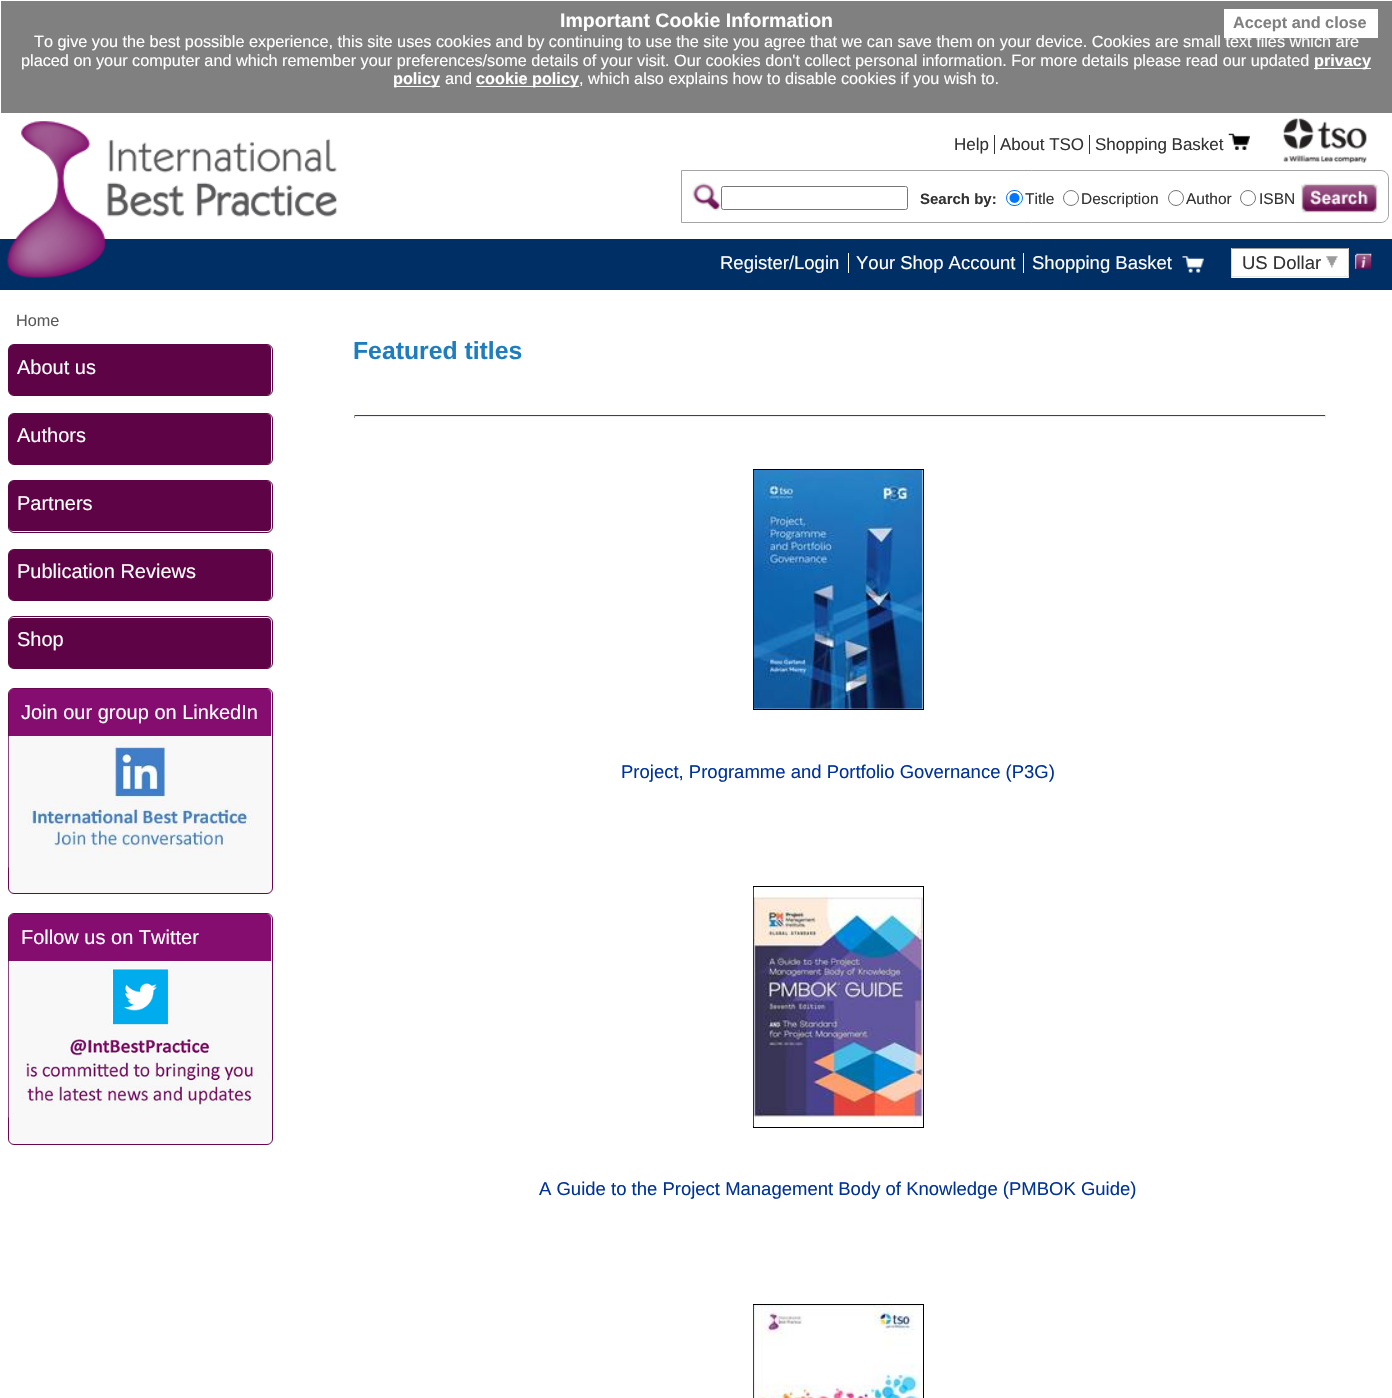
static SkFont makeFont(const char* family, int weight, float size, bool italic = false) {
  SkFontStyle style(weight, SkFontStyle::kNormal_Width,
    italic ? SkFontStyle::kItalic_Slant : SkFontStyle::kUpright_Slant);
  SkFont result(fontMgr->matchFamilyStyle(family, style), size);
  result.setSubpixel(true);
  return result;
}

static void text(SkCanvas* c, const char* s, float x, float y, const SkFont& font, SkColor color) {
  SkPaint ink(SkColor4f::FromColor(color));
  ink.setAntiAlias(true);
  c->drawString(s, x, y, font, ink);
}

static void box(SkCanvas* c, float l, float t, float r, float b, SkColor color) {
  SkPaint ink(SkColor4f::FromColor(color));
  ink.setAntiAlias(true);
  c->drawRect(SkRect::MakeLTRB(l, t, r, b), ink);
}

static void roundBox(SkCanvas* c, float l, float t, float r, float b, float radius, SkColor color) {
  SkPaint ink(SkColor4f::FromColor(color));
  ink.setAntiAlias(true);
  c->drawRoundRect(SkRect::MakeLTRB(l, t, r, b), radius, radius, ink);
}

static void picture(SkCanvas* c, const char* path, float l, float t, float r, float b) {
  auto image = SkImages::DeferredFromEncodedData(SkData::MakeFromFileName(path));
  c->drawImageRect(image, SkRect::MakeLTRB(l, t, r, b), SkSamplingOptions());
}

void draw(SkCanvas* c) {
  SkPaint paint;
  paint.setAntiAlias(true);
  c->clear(0xffffffff);
  box(c, 1, 1, 1392, 113, 0xff808080);
  SkFont face1 = makeFont("Liberation Sans", 700, 19.5f);
  text(c, "Important Cookie Information", 560, 27, face1, 0xffffffff);
  box(c, 1224, 9, 1378, 38, 0xffffffff);
  SkFont face2 = makeFont("Liberation Sans", 700, 16.25f);
  text(c, "Accept and close", 1233, 28, face2, 0xff808080);
  SkFont face3 = makeFont("Liberation Sans", 400, 16.25f);
  text(c, "To give you the best possible experience, this site uses cookies and by continuing to use the site you agree that we can save them on your device. Cookies are small text files which are", 34, 47, face3, 0xffffffff);
  text(c, "placed on your computer and which remember your preferences/some details of your visit. Our cookies don't collect personal information. For more details please read our updated", 21, 66, face3, 0xffffffff);
  box(c, 1314, 68, 1371, 69, 0xffffffff);
  text(c, "privacy", 1314, 66, face2, 0xffffffff);
  box(c, 394, 86, 440, 87, 0xffffffff);
  text(c, "policy", 393, 84, face2, 0xffffffff);
  text(c, "and", 445, 84, face3, 0xffffffff);
  box(c, 476, 86, 579, 87, 0xffffffff);
  text(c, "cookie policy", 476, 84, face2, 0xffffffff);
  text(c, ", which also explains how to disable cookies if you wish to.", 579, 84, face3, 0xffffffff);
  box(c, 0, 239, 1392, 290, 0xff002f65);
  picture(c, "img_01.png", 7, 121, 337, 278);
  SkFont face4 = makeFont("Liberation Sans", 400, 17);
  text(c, "Help", 954, 150, face4, 0xff333333);
  text(c, "About TSO", 1000, 150, face4, 0xff333333);
  box(c, 994, 135, 995, 154, 0xff333333);
  text(c, "Shopping Basket", 1095, 150, face4, 0xff333333);
  box(c, 1089, 135, 1090, 154, 0xff333333);
  picture(c, "img_02.png", 1228, 133, 1250, 150);
  picture(c, "img_03.png", 1283, 118, 1367, 163);
  paint.setStyle(SkPaint::kStroke_Style);
  paint.setStrokeWidth(1);
  paint.setColor(0xffa4a4a4);
  c->drawPath(SkPathBuilder().moveTo(681.5f, 170.5f).lineTo(1381, 170.5f).cubicTo(1385, 170.5f, 1388.5f, 174, 1388.5f, 178).lineTo(1388.5f, 215).cubicTo(1388.5f, 219, 1385, 222.5f, 1381, 222.5f).lineTo(681.5f, 222.5f).close().detach(), paint);
  picture(c, "img_04.png", 692, 182, 721, 211);
  paint.setColor(0xff767676);
  c->drawRoundRect(SkRect::MakeLTRB(721.5f, 186.5f, 907.5f, 209.5f), 2, 2, paint);
  SkFont face5 = makeFont("Liberation Sans", 700, 15);
  text(c, "Search by:", 920, 204, face5, 0xff333333);
  paint.setColor(0xff0075ff);
  c->drawRoundRect(SkRect::MakeLTRB(1006.5f, 190.5f, 1022.5f, 205.5f), 7.5f, 7.5f, paint);
  paint.setStyle(SkPaint::kFill_Style);
  c->drawCircle(1014.5f, 198, 5, paint);
  SkFont face6 = makeFont("Liberation Sans", 400, 15.5f);
  text(c, "Title", 1025, 204, face6, 0xff333333);
  paint.setStyle(SkPaint::kStroke_Style);
  paint.setColor(0xff767676);
  c->drawCircle(1071, 198, 7.5f, paint);
  text(c, "Description", 1081, 204, face6, 0xff333333);
  c->drawCircle(1176, 198, 7.5f, paint);
  text(c, "Author", 1186, 204, face6, 0xff333333);
  c->drawCircle(1248, 198, 7.5f, paint);
  text(c, "ISBN", 1259, 204, face6, 0xff333333);
  picture(c, "img_05.png", 1301, 183, 1378, 213);
  SkFont face7 = makeFont("Liberation Sans", 400, 18.5f);
  text(c, "Register/Login", 720, 269, face7, 0xffffffff);
  text(c, "Your Shop Account", 856, 269, face7, 0xffffffff);
  box(c, 848, 253, 849, 273, 0xffffffff);
  box(c, 1023, 253, 1024, 273, 0xffffffff);
  text(c, "Shopping Basket", 1032, 269, face7, 0xffffffff);
  picture(c, "img_06.png", 1182, 256, 1204, 273);
  box(c, 1232, 249, 1348, 278, 0xffffffff);
  box(c, 1231, 248, 1349, 249, 0xff9b9b9b);
  box(c, 1348, 248, 1349, 278, 0xffd5d5d5);
  box(c, 1231, 276, 1349, 277, 0xffe8e8e8);
  box(c, 1231, 248, 1232, 278, 0xffd5d5d5);
  text(c, "US Dollar", 1242, 269, face7, 0xff333333);
  picture(c, "img_07.png", 1326, 256, 1338, 268);
  picture(c, "img_08.png", 1355, 253, 1372, 269);
  text(c, "Home", 16, 326, face3, 0xff595959);
  paint.setStyle(SkPaint::kFill_Style);
  paint.setColor(0xfff8f8f8);
  c->drawRoundRect(SkRect::MakeLTRB(8.5f, 344.5f, 272.5f, 395.5f), 5.5f, 5.5f, paint);
  paint.setStyle(SkPaint::kStroke_Style);
  paint.setColor(0xff5e0446);
  c->drawRoundRect(SkRect::MakeLTRB(8.5f, 344.5f, 272.5f, 395.5f), 5.5f, 5.5f, paint);
  roundBox(c, 9, 345, 271, 395, 4, 0xff5e0446);
  SkFont face8 = makeFont("Liberation Sans", 400, 20);
  text(c, "About us", 17, 374, face8, 0xffffffff);
  paint.setStyle(SkPaint::kFill_Style);
  paint.setColor(0xfff8f8f8);
  c->drawRoundRect(SkRect::MakeLTRB(8.5f, 413.5f, 272.5f, 464.5f), 5.5f, 5.5f, paint);
  paint.setStyle(SkPaint::kStroke_Style);
  paint.setColor(0xff5e0446);
  c->drawRoundRect(SkRect::MakeLTRB(8.5f, 413.5f, 272.5f, 464.5f), 5.5f, 5.5f, paint);
  roundBox(c, 9, 414, 271, 464, 4, 0xff5e0446);
  text(c, "Authors", 17, 442, face8, 0xffffffff);
  paint.setStyle(SkPaint::kFill_Style);
  paint.setColor(0xfff8f8f8);
  c->drawRoundRect(SkRect::MakeLTRB(8.5f, 480.5f, 272.5f, 532.5f), 5.5f, 5.5f, paint);
  paint.setStyle(SkPaint::kStroke_Style);
  paint.setColor(0xff5e0446);
  c->drawRoundRect(SkRect::MakeLTRB(8.5f, 480.5f, 272.5f, 532.5f), 5.5f, 5.5f, paint);
  roundBox(c, 9, 481, 271, 531, 4, 0xff5e0446);
  text(c, "Partners", 17, 510, face8, 0xffffffff);
  paint.setStyle(SkPaint::kFill_Style);
  paint.setColor(0xfff8f8f8);
  c->drawRoundRect(SkRect::MakeLTRB(8.5f, 549.5f, 272.5f, 600.5f), 5.5f, 5.5f, paint);
  paint.setStyle(SkPaint::kStroke_Style);
  paint.setColor(0xff5e0446);
  c->drawRoundRect(SkRect::MakeLTRB(8.5f, 549.5f, 272.5f, 600.5f), 5.5f, 5.5f, paint);
  roundBox(c, 9, 550, 271, 600, 4, 0xff5e0446);
  text(c, "Publication Reviews", 17, 578, face8, 0xffffffff);
  paint.setStyle(SkPaint::kFill_Style);
  paint.setColor(0xfff8f8f8);
  c->drawRoundRect(SkRect::MakeLTRB(8.5f, 616.5f, 272.5f, 668.5f), 5.5f, 5.5f, paint);
  paint.setStyle(SkPaint::kStroke_Style);
  paint.setColor(0xff5e0446);
  c->drawRoundRect(SkRect::MakeLTRB(8.5f, 616.5f, 272.5f, 668.5f), 5.5f, 5.5f, paint);
  roundBox(c, 9, 618, 271, 668, 4, 0xff5e0446);
  text(c, "Shop", 17, 646, face8, 0xffffffff);
  paint.setStyle(SkPaint::kFill_Style);
  paint.setColor(0xfff8f8f8);
  c->drawRoundRect(SkRect::MakeLTRB(8.5f, 688.5f, 272.5f, 893.5f), 5.5f, 5.5f, paint);
  paint.setStyle(SkPaint::kStroke_Style);
  paint.setColor(0xff690651);
  c->drawRoundRect(SkRect::MakeLTRB(8.5f, 688.5f, 272.5f, 893.5f), 5.5f, 5.5f, paint);
  paint.setStyle(SkPaint::kFill_Style);
  paint.setColor(0xff850d70);
  c->drawPath(SkPathBuilder().moveTo(13, 689).lineTo(267, 689).cubicTo(269, 689, 271, 691, 271, 693).lineTo(271, 736).lineTo(9, 736).lineTo(9, 693).cubicTo(9, 691, 11, 689, 13, 689).close().detach(), paint);
  text(c, "Join our group on LinkedIn", 21, 719, face8, 0xffffffff);
  picture(c, "img_09.png", 8, 736, 258, 868);
  paint.setColor(0xfff8f8f8);
  c->drawRoundRect(SkRect::MakeLTRB(8.5f, 913.5f, 272.5f, 1144.5f), 5.5f, 5.5f, paint);
  paint.setStyle(SkPaint::kStroke_Style);
  paint.setColor(0xff690651);
  c->drawRoundRect(SkRect::MakeLTRB(8.5f, 913.5f, 272.5f, 1144.5f), 5.5f, 5.5f, paint);
  paint.setStyle(SkPaint::kFill_Style);
  paint.setColor(0xff850d70);
  c->drawPath(SkPathBuilder().moveTo(13, 914).lineTo(267, 914).cubicTo(269, 914, 271, 916, 271, 918).lineTo(271, 961).lineTo(9, 961).lineTo(9, 918).cubicTo(9, 916, 11, 914, 13, 914).close().detach(), paint);
  text(c, "Follow us on Twitter", 21, 944, face8, 0xffffffff);
  picture(c, "img_10.png", 8, 961, 258, 1118);
  SkFont face9 = makeFont("Liberation Sans", 700, 24.75f);
  text(c, "Featured titles", 353, 359, face9, 0xff1f7dbd);
  box(c, 354, 415, 1326, 416, 0xff9b0a79);
  box(c, 1325, 415, 1326, 418, 0xffeeeeee);
  box(c, 354, 416, 1326, 417, 0xffeeeeee);
  box(c, 354, 415, 355, 418, 0xff9f9f9f);
  paint.setStyle(SkPaint::kStroke_Style);
  paint.setColor(0xff000000);
  c->drawRect(SkRect::MakeLTRB(753.5f, 469.5f, 923.5f, 709.5f), paint);
  picture(c, "img_11.png", 753, 470, 923, 709);
  text(c, "Project, Programme and Portfolio Governance (P3G)", 621, 778, face7, 0xff003399);
  c->drawRect(SkRect::MakeLTRB(753.5f, 886.5f, 923.5f, 1127.5f), paint);
  picture(c, "img_12.png", 753, 887, 923, 1127);
  text(c, "A Guide to the Project Management Body of Knowledge (PMBOK Guide)", 539, 1195, face7, 0xff003399);
  c->drawRect(SkRect::MakeLTRB(753.5f, 1304.5f, 923.5f, 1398.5f), paint);
  picture(c, "img_13.png", 753, 1305, 923, 1398);
}
